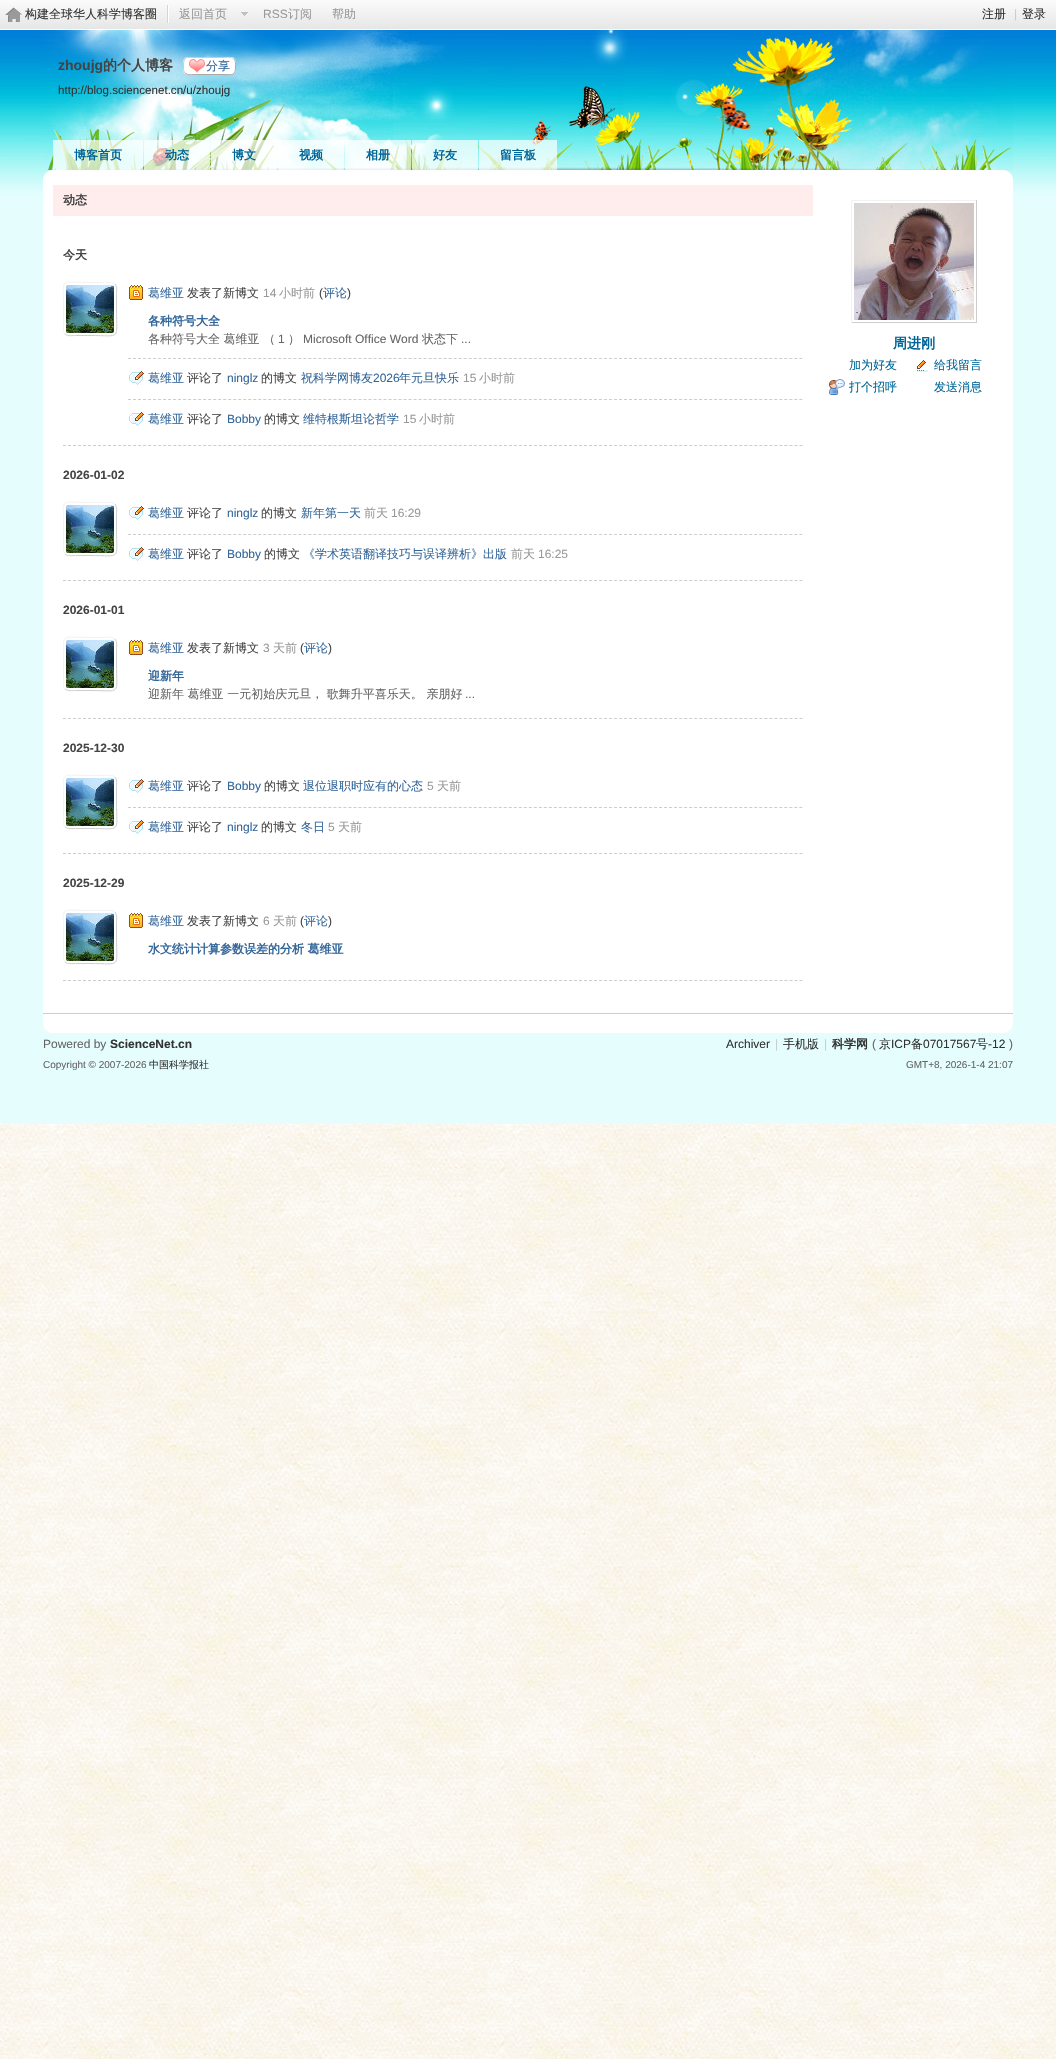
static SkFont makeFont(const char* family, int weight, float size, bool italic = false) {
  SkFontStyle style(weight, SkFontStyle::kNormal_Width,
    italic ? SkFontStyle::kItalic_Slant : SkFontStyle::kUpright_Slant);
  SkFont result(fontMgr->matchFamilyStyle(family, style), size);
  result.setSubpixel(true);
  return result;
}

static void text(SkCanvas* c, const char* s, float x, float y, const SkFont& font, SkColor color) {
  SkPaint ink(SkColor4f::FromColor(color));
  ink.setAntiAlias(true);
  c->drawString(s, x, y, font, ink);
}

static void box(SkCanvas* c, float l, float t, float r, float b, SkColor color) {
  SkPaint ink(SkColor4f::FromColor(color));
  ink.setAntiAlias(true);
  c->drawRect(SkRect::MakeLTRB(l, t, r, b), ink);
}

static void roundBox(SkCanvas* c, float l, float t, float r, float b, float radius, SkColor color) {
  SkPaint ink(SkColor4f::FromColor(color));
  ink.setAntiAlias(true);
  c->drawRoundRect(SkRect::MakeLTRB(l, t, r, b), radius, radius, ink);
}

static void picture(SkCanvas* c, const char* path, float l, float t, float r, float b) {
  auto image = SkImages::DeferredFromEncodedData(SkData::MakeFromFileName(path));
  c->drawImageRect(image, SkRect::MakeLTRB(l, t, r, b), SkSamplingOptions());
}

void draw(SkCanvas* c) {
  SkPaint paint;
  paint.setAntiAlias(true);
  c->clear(0xffffffff);
  picture(c, "img_01.png", 0, 1124, 1056, 2059);
  box(c, 0, 195, 1056, 1124, 0xffe6fdfe);
  picture(c, "img_02.png", 0, 30, 1056, 195);
  picture(c, "img_03.png", 0, 0, 1056, 30);
  picture(c, "img_04.png", 5, 7, 22, 22);
  box(c, 168, 5, 169, 23, 0xffffffff);
  box(c, 167, 5, 168, 23, 0xffd5d5d5);
  SkFont face1 = makeFont("WenQuanYi Zen Hei", 500, 12);
  text(c, "构建全球华人科学博客圈", 25, 18, face1, 0xff333333);
  text(c, "返回首页", 179, 18, face1, 0xff999999);
  picture(c, "img_05.png", 241, 12, 248, 16);
  SkFont face2 = makeFont("Liberation Sans", 400, 12);
  text(c, "RSS", 263, 18, face2, 0xff999999);
  text(c, "订阅", 288, 18, face1, 0xff999999);
  text(c, "帮助", 332, 18, face1, 0xff999999);
  text(c, "注册", 982, 18, face1, 0xff333333);
  text(c, "|", 1014, 18, face2, 0xffcccccc);
  text(c, "登录", 1022, 18, face1, 0xff333333);
  picture(c, "img_06.png", 43, 30, 1013, 170);
  SkFont face3 = makeFont("Liberation Sans", 700, 14);
  text(c, "zhoujg", 58, 70, face3, 0xff444444);
  SkFont face4 = makeFont("WenQuanYi Zen Hei", 700, 14);
  text(c, "的个人博客", 103, 70, face4, 0xff444444);
  roundBox(c, 183, 57, 236, 75, 5, 0xffffffff);
  picture(c, "img_07.png", 189, 59, 205, 73);
  paint.setStyle(SkPaint::kStroke_Style);
  paint.setStrokeWidth(1);
  paint.setColor(0xffa9a9a9);
  c->drawPath(SkPathBuilder().moveTo(234, 59).cubicTo(236, 61, 235.5f, 64, 235.5f, 67).cubicTo(235.5f, 76, 232.5f, 74.5f, 224, 74.5f).lineTo(195, 74.5f).cubicTo(193, 74.5f, 187.5f, 75.5f, 185, 73).detach(), paint);
  paint.setColor(0xffcccccc);
  c->drawPath(SkPathBuilder().moveTo(185, 73).cubicTo(183, 71, 183.5f, 68, 183.5f, 65).cubicTo(183.5f, 56, 186.5f, 57.5f, 195, 57.5f).lineTo(224, 57.5f).cubicTo(226, 57.5f, 231.5f, 56.5f, 234, 59).detach(), paint);
  text(c, "分享", 206, 70, face1, 0xff336699);
  SkFont face5 = makeFont("Liberation Sans", 400, 11.6f);
  text(c, "http://blog.sciencenet.cn/u/zhoujg", 58, 94, face5, 0xff333333);
  box(c, 53, 140, 143, 170, 0xb3ffffff);
  SkFont face6 = makeFont("WenQuanYi Zen Hei", 700, 12);
  text(c, "博客首页", 74, 159, face6, 0xff006699);
  box(c, 144, 140, 210, 170, 0xb3ffffff);
  text(c, "动态", 165, 159, face6, 0xff006699);
  box(c, 211, 140, 277, 170, 0xb3ffffff);
  text(c, "博文", 232, 159, face6, 0xff006699);
  box(c, 278, 140, 344, 170, 0xb3ffffff);
  text(c, "视频", 299, 159, face6, 0xff006699);
  box(c, 345, 140, 411, 170, 0xb3ffffff);
  text(c, "相册", 366, 159, face6, 0xff006699);
  box(c, 412, 140, 478, 170, 0xb3ffffff);
  text(c, "好友", 433, 159, face6, 0xff006699);
  box(c, 479, 140, 557, 170, 0xb3ffffff);
  text(c, "留言板", 500, 159, face6, 0xff006699);
  box(c, 43, 179, 1013, 1013, 0xffffffff);
  picture(c, "img_08.png", 43, 170, 1013, 179);
  box(c, 53, 185, 813, 216, 0xffffecec);
  text(c, "动态", 63, 204, face6, 0xff444444);
  text(c, "今天", 63, 259, face6, 0xff444444);
  paint.setColor(0xffcdcdcd);
  paint.setPathEffect(SkDashPathEffect::Make({{3, 2.01f}}, 0));
  c->drawPath(SkPathBuilder().moveTo(63, 445.5f).lineTo(803, 445.5f).detach(), paint);
  paint.setPathEffect(nullptr);
  c->drawPath(SkPathBuilder().moveTo(115, 284).cubicTo(117.5f, 286.5f, 116.5f, 292, 116.5f, 294.5f).lineTo(116.5f, 309).cubicTo(116.5f, 341, 122, 335.5f, 90, 335.5f).lineTo(75.5f, 335.5f).cubicTo(73, 335.5f, 67.5f, 336.5f, 65, 334).detach(), paint);
  c->save();
  c->clipRect(SkRect::MakeLTRB(63, 226, 803, 981));
  paint.setColor(0xfff2f2f2);
  c->drawPath(SkPathBuilder().moveTo(65, 334).cubicTo(62.5f, 331.5f, 63.5f, 326, 63.5f, 323.5f).lineTo(63.5f, 309).cubicTo(63.5f, 277, 58, 282.5f, 90, 282.5f).lineTo(104.5f, 282.5f).cubicTo(107, 282.5f, 112.5f, 281.5f, 115, 284).detach(), paint);
  c->restore();
  picture(c, "img_09.png", 66, 285, 114, 333);
  paint.setColor(0xffcdcdcd);
  paint.setPathEffect(SkDashPathEffect::Make({{3, 2.01f}}, 0));
  c->drawPath(SkPathBuilder().moveTo(128, 358.5f).lineTo(803, 358.5f).detach(), paint);
  paint.setPathEffect(nullptr);
  picture(c, "img_10.png", 129, 285, 143, 300);
  text(c, "葛维亚", 148, 297, face1, 0xff336699);
  text(c, "发表了新博文", 187, 297, face1, 0xff444444);
  text(c, "14", 263, 297, face2, 0xff999999);
  text(c, "小时前", 279, 297, face1, 0xff999999);
  text(c, "(", 319, 297, face2, 0xff444444);
  text(c, "评论", 323, 297, face1, 0xff336699);
  text(c, ")", 347, 297, face2, 0xff444444);
  text(c, "各种符号大全", 148, 325, face6, 0xff336699);
  text(c, "各种符号大全 葛维亚 （", 148, 343, face1, 0xff666666);
  text(c, "1", 278, 343, face2, 0xff666666);
  text(c, "）", 288, 343, face1, 0xff666666);
  text(c, "Microsoft Office Word", 303, 343, face2, 0xff666666);
  text(c, "状态下", 422, 343, face1, 0xff666666);
  text(c, "...", 461, 343, face2, 0xff666666);
  paint.setPathEffect(SkDashPathEffect::Make({{3, 2.01f}}, 0));
  c->drawPath(SkPathBuilder().moveTo(128, 399.5f).lineTo(803, 399.5f).detach(), paint);
  paint.setPathEffect(nullptr);
  picture(c, "img_11.png", 129, 371, 144, 385);
  text(c, "葛维亚", 148, 382, face1, 0xff336699);
  text(c, "评论了", 187, 382, face1, 0xff444444);
  text(c, "ninglz", 227, 382, face2, 0xff336699);
  text(c, "的博文", 261, 382, face1, 0xff444444);
  text(c, "祝科学网博友", 301, 382, face1, 0xff336699);
  text(c, "2026", 373, 382, face2, 0xff336699);
  text(c, "年元旦快乐", 399, 382, face1, 0xff336699);
  text(c, "15", 463, 382, face2, 0xff999999);
  text(c, "小时前", 479, 382, face1, 0xff999999);
  picture(c, "img_11.png", 129, 412, 144, 426);
  text(c, "葛维亚", 148, 423, face1, 0xff336699);
  text(c, "评论了", 187, 423, face1, 0xff444444);
  text(c, "Bobby", 227, 423, face2, 0xff336699);
  text(c, "的博文", 264, 423, face1, 0xff444444);
  text(c, "维特根斯坦论哲学", 303, 423, face1, 0xff336699);
  text(c, "15", 403, 423, face2, 0xff999999);
  text(c, "小时前", 419, 423, face1, 0xff999999);
  SkFont face7 = makeFont("Liberation Sans", 700, 12);
  text(c, "2026-01-02", 63, 479, face7, 0xff444444);
  paint.setPathEffect(SkDashPathEffect::Make({{3, 2.01f}}, 0));
  c->drawPath(SkPathBuilder().moveTo(63, 580.5f).lineTo(803, 580.5f).detach(), paint);
  paint.setPathEffect(nullptr);
  c->drawPath(SkPathBuilder().moveTo(115, 504).cubicTo(117.5f, 506.5f, 116.5f, 512, 116.5f, 514.5f).lineTo(116.5f, 529).cubicTo(116.5f, 561, 122, 555.5f, 90, 555.5f).lineTo(75.5f, 555.5f).cubicTo(73, 555.5f, 67.5f, 556.5f, 65, 554).detach(), paint);
  c->save();
  c->clipRect(SkRect::MakeLTRB(63, 226, 803, 981));
  paint.setColor(0xfff2f2f2);
  c->drawPath(SkPathBuilder().moveTo(65, 554).cubicTo(62.5f, 551.5f, 63.5f, 546, 63.5f, 543.5f).lineTo(63.5f, 529).cubicTo(63.5f, 497, 58, 502.5f, 90, 502.5f).lineTo(104.5f, 502.5f).cubicTo(107, 502.5f, 112.5f, 501.5f, 115, 504).detach(), paint);
  c->restore();
  picture(c, "img_09.png", 66, 505, 114, 553);
  paint.setColor(0xffcdcdcd);
  paint.setPathEffect(SkDashPathEffect::Make({{3, 2.01f}}, 0));
  c->drawPath(SkPathBuilder().moveTo(128, 534.5f).lineTo(803, 534.5f).detach(), paint);
  paint.setPathEffect(nullptr);
  picture(c, "img_11.png", 129, 506, 144, 520);
  text(c, "葛维亚", 148, 517, face1, 0xff336699);
  text(c, "评论了", 187, 517, face1, 0xff444444);
  text(c, "ninglz", 227, 517, face2, 0xff336699);
  text(c, "的博文", 261, 517, face1, 0xff444444);
  text(c, "新年第一天", 301, 517, face1, 0xff336699);
  text(c, "前天", 364, 517, face1, 0xff999999);
  text(c, "16:29", 391, 517, face2, 0xff999999);
  picture(c, "img_11.png", 129, 547, 144, 561);
  text(c, "葛维亚", 148, 558, face1, 0xff336699);
  text(c, "评论了", 187, 558, face1, 0xff444444);
  text(c, "Bobby", 227, 558, face2, 0xff336699);
  text(c, "的博文", 264, 558, face1, 0xff444444);
  text(c, "《学术英语翻译技巧与误译辨析》出版", 303, 558, face1, 0xff336699);
  text(c, "前天", 511, 558, face1, 0xff999999);
  text(c, "16:25", 538, 558, face2, 0xff999999);
  text(c, "2026-01-01", 63, 614, face7, 0xff444444);
  paint.setPathEffect(SkDashPathEffect::Make({{3, 2.01f}}, 0));
  c->drawPath(SkPathBuilder().moveTo(63, 718.5f).lineTo(803, 718.5f).detach(), paint);
  paint.setPathEffect(nullptr);
  c->drawPath(SkPathBuilder().moveTo(115, 639).cubicTo(117.5f, 641.5f, 116.5f, 647, 116.5f, 649.5f).lineTo(116.5f, 664).cubicTo(116.5f, 696, 122, 690.5f, 90, 690.5f).lineTo(75.5f, 690.5f).cubicTo(73, 690.5f, 67.5f, 691.5f, 65, 689).detach(), paint);
  c->save();
  c->clipRect(SkRect::MakeLTRB(63, 226, 803, 981));
  paint.setColor(0xfff2f2f2);
  c->drawPath(SkPathBuilder().moveTo(65, 689).cubicTo(62.5f, 686.5f, 63.5f, 681, 63.5f, 678.5f).lineTo(63.5f, 664).cubicTo(63.5f, 632, 58, 637.5f, 90, 637.5f).lineTo(104.5f, 637.5f).cubicTo(107, 637.5f, 112.5f, 636.5f, 115, 639).detach(), paint);
  c->restore();
  picture(c, "img_09.png", 66, 640, 114, 688);
  picture(c, "img_10.png", 129, 640, 143, 655);
  text(c, "葛维亚", 148, 652, face1, 0xff336699);
  text(c, "发表了新博文", 187, 652, face1, 0xff444444);
  text(c, "3", 263, 652, face2, 0xff999999);
  text(c, "天前", 273, 652, face1, 0xff999999);
  text(c, "(", 300, 652, face2, 0xff444444);
  text(c, "评论", 304, 652, face1, 0xff336699);
  text(c, ")", 328, 652, face2, 0xff444444);
  text(c, "迎新年", 148, 680, face6, 0xff336699);
  text(c, "迎新年 葛维亚 一元初始庆元旦， 歌舞升平喜乐天。 亲朋好", 148, 698, face1, 0xff666666);
  text(c, "...", 465, 698, face2, 0xff666666);
  text(c, "2025-12-30", 63, 752, face7, 0xff444444);
  paint.setColor(0xffcdcdcd);
  paint.setPathEffect(SkDashPathEffect::Make({{3, 2.01f}}, 0));
  c->drawPath(SkPathBuilder().moveTo(63, 853.5f).lineTo(803, 853.5f).detach(), paint);
  paint.setPathEffect(nullptr);
  c->drawPath(SkPathBuilder().moveTo(115, 777).cubicTo(117.5f, 779.5f, 116.5f, 785, 116.5f, 787.5f).lineTo(116.5f, 802).cubicTo(116.5f, 834, 122, 828.5f, 90, 828.5f).lineTo(75.5f, 828.5f).cubicTo(73, 828.5f, 67.5f, 829.5f, 65, 827).detach(), paint);
  c->save();
  c->clipRect(SkRect::MakeLTRB(63, 226, 803, 981));
  paint.setColor(0xfff2f2f2);
  c->drawPath(SkPathBuilder().moveTo(65, 827).cubicTo(62.5f, 824.5f, 63.5f, 819, 63.5f, 816.5f).lineTo(63.5f, 802).cubicTo(63.5f, 770, 58, 775.5f, 90, 775.5f).lineTo(104.5f, 775.5f).cubicTo(107, 775.5f, 112.5f, 774.5f, 115, 777).detach(), paint);
  c->restore();
  picture(c, "img_09.png", 66, 778, 114, 826);
  paint.setColor(0xffcdcdcd);
  paint.setPathEffect(SkDashPathEffect::Make({{3, 2.01f}}, 0));
  c->drawPath(SkPathBuilder().moveTo(128, 807.5f).lineTo(803, 807.5f).detach(), paint);
  paint.setPathEffect(nullptr);
  picture(c, "img_11.png", 129, 779, 144, 793);
  text(c, "葛维亚", 148, 790, face1, 0xff336699);
  text(c, "评论了", 187, 790, face1, 0xff444444);
  text(c, "Bobby", 227, 790, face2, 0xff336699);
  text(c, "的博文", 264, 790, face1, 0xff444444);
  text(c, "退位退职时应有的心态", 303, 790, face1, 0xff336699);
  text(c, "5", 427, 790, face2, 0xff999999);
  text(c, "天前", 437, 790, face1, 0xff999999);
  picture(c, "img_11.png", 129, 820, 144, 834);
  text(c, "葛维亚", 148, 831, face1, 0xff336699);
  text(c, "评论了", 187, 831, face1, 0xff444444);
  text(c, "ninglz", 227, 831, face2, 0xff336699);
  text(c, "的博文", 261, 831, face1, 0xff444444);
  text(c, "冬日", 301, 831, face1, 0xff336699);
  text(c, "5", 328, 831, face2, 0xff999999);
  text(c, "天前", 338, 831, face1, 0xff999999);
  text(c, "2025-12-29", 63, 887, face7, 0xff444444);
  paint.setPathEffect(SkDashPathEffect::Make({{3, 2.01f}}, 0));
  c->drawPath(SkPathBuilder().moveTo(63, 980.5f).lineTo(803, 980.5f).detach(), paint);
  paint.setPathEffect(nullptr);
  c->drawPath(SkPathBuilder().moveTo(115, 912).cubicTo(117.5f, 914.5f, 116.5f, 920, 116.5f, 922.5f).lineTo(116.5f, 937).cubicTo(116.5f, 969, 122, 963.5f, 90, 963.5f).lineTo(75.5f, 963.5f).cubicTo(73, 963.5f, 67.5f, 964.5f, 65, 962).detach(), paint);
  c->save();
  c->clipRect(SkRect::MakeLTRB(63, 226, 803, 981));
  paint.setColor(0xfff2f2f2);
  c->drawPath(SkPathBuilder().moveTo(65, 962).cubicTo(62.5f, 959.5f, 63.5f, 954, 63.5f, 951.5f).lineTo(63.5f, 937).cubicTo(63.5f, 905, 58, 910.5f, 90, 910.5f).lineTo(104.5f, 910.5f).cubicTo(107, 910.5f, 112.5f, 909.5f, 115, 912).detach(), paint);
  c->restore();
  picture(c, "img_09.png", 66, 913, 114, 961);
  picture(c, "img_10.png", 129, 913, 143, 928);
  text(c, "葛维亚", 148, 925, face1, 0xff336699);
  text(c, "发表了新博文", 187, 925, face1, 0xff444444);
  text(c, "6", 263, 925, face2, 0xff999999);
  text(c, "天前", 273, 925, face1, 0xff999999);
  text(c, "(", 300, 925, face2, 0xff444444);
  text(c, "评论", 304, 925, face1, 0xff336699);
  text(c, ")", 328, 925, face2, 0xff444444);
  text(c, "水文统计计算参数误差的分析 葛维亚", 148, 953, face6, 0xff336699);
  box(c, 851, 200, 977, 201, 0xfff2f2f2);
  box(c, 976, 200, 977, 323, 0xffcdcdcd);
  box(c, 851, 322, 977, 323, 0xffcdcdcd);
  box(c, 851, 200, 852, 323, 0xfff2f2f2);
  picture(c, "img_12.png", 854, 203, 974, 320);
  text(c, "周进刚", 893, 348, face4, 0xff006699);
  text(c, "加为好友", 849, 369, face1, 0xff006699);
  picture(c, "img_13.png", 917, 360, 928, 372);
  text(c, "给我留言", 934, 369, face1, 0xff006699);
  picture(c, "img_14.png", 829, 379, 845, 395);
  text(c, "打个招呼", 849, 391, face1, 0xff006699);
  text(c, "发送消息", 934, 391, face1, 0xff006699);
  picture(c, "img_15.png", 43, 1014, 1013, 1033);
  box(c, 43, 1013, 1013, 1014, 0xffcdcdcd);
  text(c, "Powered by", 43, 1048, face2, 0xff666666);
  text(c, "ScienceNet.cn", 110, 1048, face7, 0xff333333);
  SkFont face8 = makeFont("Liberation Sans", 400, 10);
  text(c, "Copyright © 2007-2026", 43, 1068, face8, 0xff666666);
  SkFont face9 = makeFont("WenQuanYi Zen Hei", 500, 10);
  text(c, "中国科学报社", 149, 1068, face9, 0xff333333);
  text(c, "Archiver", 726, 1048, face2, 0xff333333);
  text(c, "|", 775, 1048, face2, 0xffcccccc);
  text(c, "手机版", 783, 1048, face1, 0xff333333);
  text(c, "|", 824, 1048, face2, 0xffcccccc);
  text(c, "科学网", 832, 1048, face6, 0xff333333);
  text(c, "(", 872, 1048, face2, 0xff666666);
  text(c, "京", 879, 1048, face1, 0xff333333);
  text(c, "ICP", 891, 1048, face2, 0xff333333);
  text(c, "备", 911, 1048, face1, 0xff333333);
  text(c, "07017567", 923, 1048, face2, 0xff333333);
  text(c, "号", 976, 1048, face1, 0xff333333);
  text(c, "-12", 988, 1048, face2, 0xff333333);
  text(c, ")", 1009, 1048, face2, 0xff666666);
  text(c, "GMT+8, 2026-1-4 21:07", 906, 1068, face8, 0xff666666);
}
